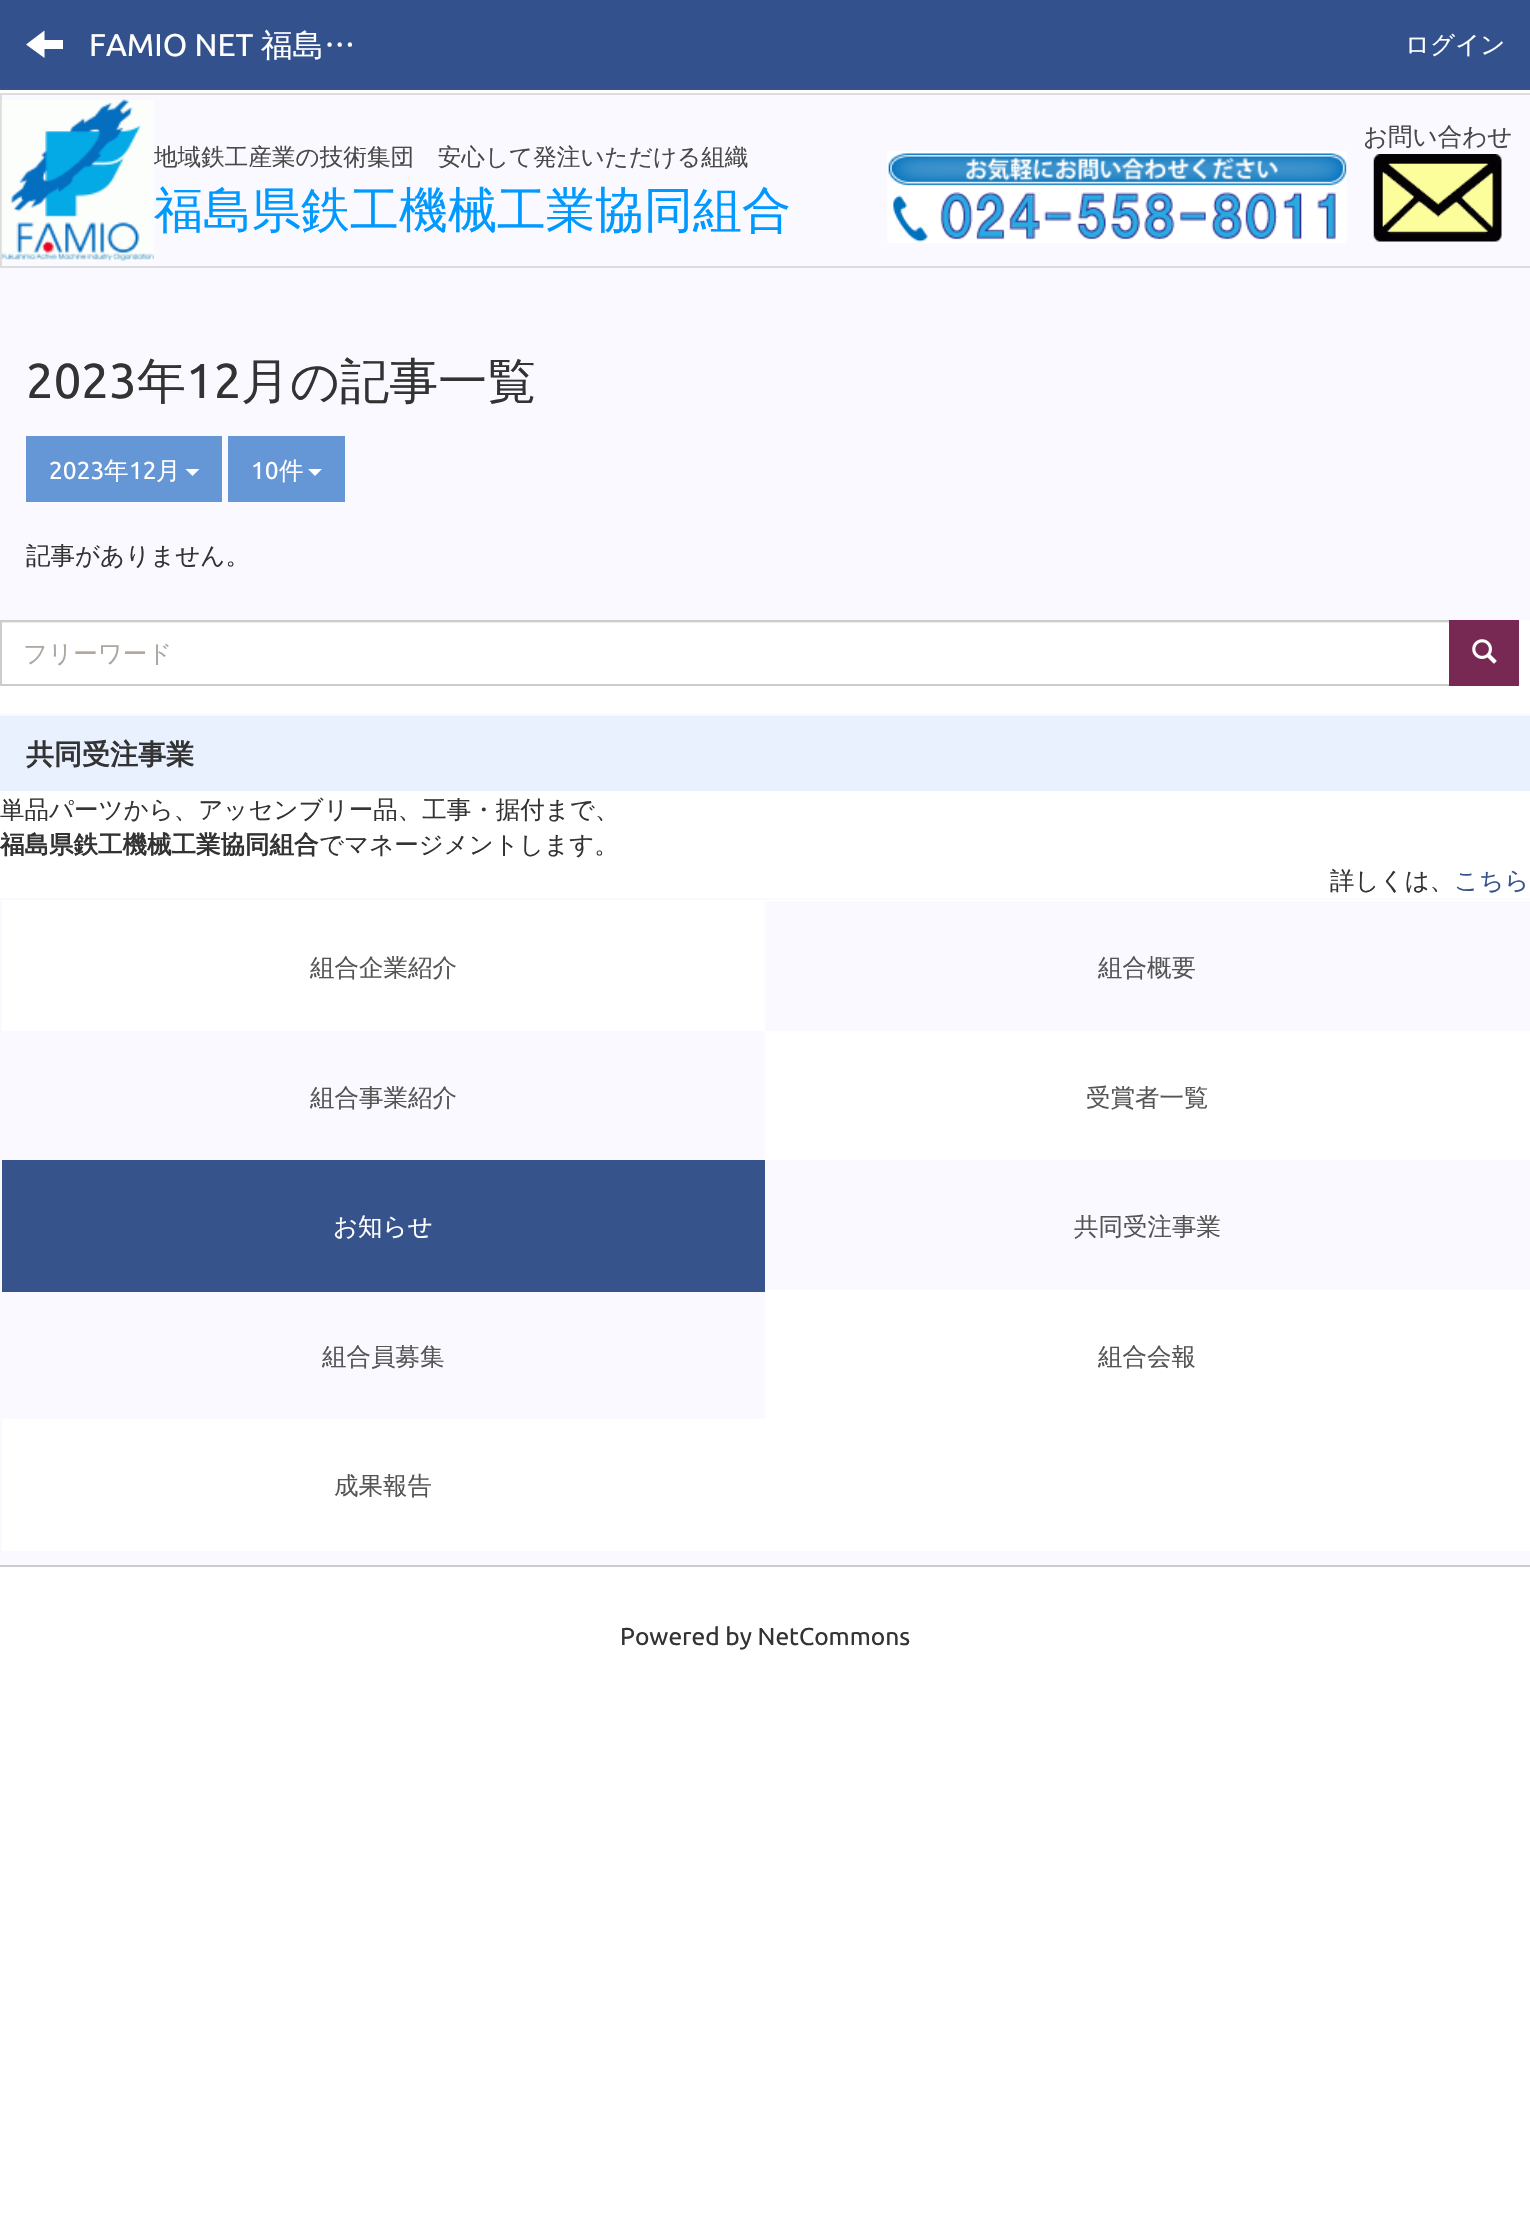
static SkFont makeFont(const char* family, int weight, float size, bool italic = false) {
  SkFontStyle style(weight, SkFontStyle::kNormal_Width,
    italic ? SkFontStyle::kItalic_Slant : SkFontStyle::kUpright_Slant);
  SkFont result(fontMgr->matchFamilyStyle(family, style), size);
  result.setSubpixel(true);
  return result;
}

static void text(SkCanvas* c, const char* s, float x, float y, const SkFont& font, SkColor color) {
  SkPaint ink(SkColor4f::FromColor(color));
  ink.setAntiAlias(true);
  c->drawString(s, x, y, font, ink);
}

static void box(SkCanvas* c, float l, float t, float r, float b, SkColor color) {
  SkPaint ink(SkColor4f::FromColor(color));
  ink.setAntiAlias(true);
  c->drawRect(SkRect::MakeLTRB(l, t, r, b), ink);
}

static void picture(SkCanvas* c, const char* path, float l, float t, float r, float b) {
  auto image = SkImages::DeferredFromEncodedData(SkData::MakeFromFileName(path));
  c->drawImageRect(image, SkRect::MakeLTRB(l, t, r, b), SkSamplingOptions());
}

void draw(SkCanvas* c) {
  SkPaint paint;
  paint.setAntiAlias(true);
  c->clear(0xffffffff);
  box(c, 0, 0, 1530, 88, 0xff33528d);
  box(c, 0, 88, 1530, 90, 0xff37538c);
  paint.setColor(0xffffffff);
  c->drawPath(SkPathBuilder().moveTo(26, 44.5f).lineTo(44.5f, 30.5f).lineTo(44.5f, 40).lineTo(63, 40).lineTo(63, 49).lineTo(44.5f, 49).lineTo(44.5f, 58).close().detach(), paint);
  SkFont face1 = makeFont("Ubuntu", 400, 31.5f);
  text(c, "FAMIO NET", 89, 56, face1, 0xffffffff);
  SkFont face2 = makeFont("WenQuanYi Zen Hei", 500, 31.5f);
  text(c, "福島…", 261, 56, face2, 0xffffffff);
  SkFont face3 = makeFont("WenQuanYi Zen Hei", 500, 24.5f);
  text(c, "ログイン", 1405, 53, face3, 0xffffffff);
  box(c, 0, 95, 1530, 1565, 0xfff9f9ff);
  box(c, 0, 93, 1530, 95, 0xffdddddd);
  box(c, 0, 266, 1530, 268, 0xffdddddd);
  box(c, 0, 93, 2, 268, 0xffdddddd);
  picture(c, "img_01.png", 1, 99, 154, 261);
  text(c, "お問い合わせ", 1363, 145, face3, 0xff494949);
  picture(c, "img_02.png", 1373, 154, 1502, 242);
  SkFont face4 = makeFont("WenQuanYi Zen Hei", 500, 23.6f);
  text(c, "地域鉄工産業の技術集団　安心して発注いただける組織", 154, 165, face4, 0xff494949);
  SkFont face5 = makeFont("WenQuanYi Zen Hei", 500, 49);
  text(c, "福島県鉄工機械工業協同組合", 154, 227, face5, 0xff0099ff);
  picture(c, "img_03.png", 887, 151, 1347, 243);
  SkFont face6 = makeFont("Ubuntu", 400, 49);
  text(c, "2023", 26, 398, face6, 0xff333333);
  text(c, "年", 137, 398, face5, 0xff333333);
  text(c, "12", 186, 398, face6, 0xff333333);
  text(c, "月の記事一覧", 241, 398, face5, 0xff333333);
  box(c, 26, 436, 222, 502, 0xff6596d6);
  SkFont face7 = makeFont("Ubuntu", 400, 24.5f);
  text(c, "2023", 49, 479, face7, 0xffffffff);
  text(c, "年", 104, 479, face3, 0xffffffff);
  text(c, "12", 129, 479, face7, 0xffffffff);
  text(c, "月", 156, 479, face3, 0xffffffff);
  c->drawPath(SkPathBuilder().moveTo(185.5f, 469).lineTo(199.5f, 469).lineTo(192.5f, 476).close().detach(), paint);
  box(c, 228, 436, 345, 502, 0xff6596d6);
  text(c, "10", 251, 479, face7, 0xffffffff);
  text(c, "件", 279, 479, face3, 0xffffffff);
  c->drawPath(SkPathBuilder().moveTo(308, 469).lineTo(322, 469).lineTo(315, 476).close().detach(), paint);
  text(c, "記事がありません。", 26, 564, face3, 0xff333333);
  box(c, 0, 620, 1530, 714, 0xffffffff);
  box(c, 2, 622, 1449, 623, 0xffececec);
  paint.setStyle(SkPaint::kStroke_Style);
  paint.setStrokeWidth(2);
  paint.setColor(0xffcccccc);
  c->drawRect(SkRect::MakeLTRB(1, 621, 1450, 685), paint);
  text(c, "フリーワード", 23, 662, face3, 0xffaea79f);
  box(c, 1449, 620, 1519, 686, 0xff772953);
  picture(c, "img_04.png", 1472, 639, 1497, 664);
  box(c, 0, 791, 1530, 898, 0xffffffff);
  box(c, 0, 716, 1530, 791, 0xffe9f1ff);
  SkFont face8 = makeFont("WenQuanYi Zen Hei", 700, 28);
  text(c, "共同受注事業", 26, 764, face8, 0xff333333);
  text(c, "単品パーツから、アッセンブリー品、工事・据付まで、", 0, 818, face3, 0xff333333);
  SkFont face9 = makeFont("WenQuanYi Zen Hei", 700, 24.5f);
  text(c, "福島県鉄工機械工業協同組合", 0, 853, face9, 0xff333333);
  text(c, "でマネージメントします。", 319, 853, face3, 0xff333333);
  text(c, "詳しくは、", 1330, 889, face3, 0xff333333);
  text(c, "こちら", 1454, 889, face3, 0xff37538c);
  box(c, 0, 900, 1530, 1551, 0xffffffff);
  box(c, 0, 901, 2, 1033, 0xfff9f9ff);
  text(c, "組合企業紹介", 310, 976, face3, 0xff555555);
  box(c, 765, 901, 1530, 1031, 0xfff9f9ff);
  text(c, "組合概要", 1098, 976, face3, 0xff555555);
  box(c, 0, 1031, 765, 1160, 0xfff9f9ff);
  text(c, "組合事業紹介", 310, 1106, face3, 0xff555555);
  text(c, "受賞者一覧", 1086, 1106, face3, 0xff555555);
  box(c, 2, 1160, 765, 1292, 0xff37538c);
  box(c, 0, 1160, 2, 1292, 0xfff9f9ff);
  text(c, "お知らせ", 333, 1235, face3, 0xffffffff);
  box(c, 765, 1160, 1530, 1290, 0xfff9f9ff);
  text(c, "共同受注事業", 1074, 1235, face3, 0xff555555);
  box(c, 0, 1292, 765, 1419, 0xfff9f9ff);
  text(c, "組合員募集", 322, 1365, face3, 0xff555555);
  text(c, "組合会報", 1098, 1365, face3, 0xff555555);
  box(c, 0, 1419, 2, 1551, 0xfff9f9ff);
  text(c, "成果報告", 334, 1494, face3, 0xff555555);
  box(c, 0, 1565, 1530, 1567, 0xffcccccc);
  text(c, "Powered by NetCommons", 620, 1645, face7, 0xff333333);
}
